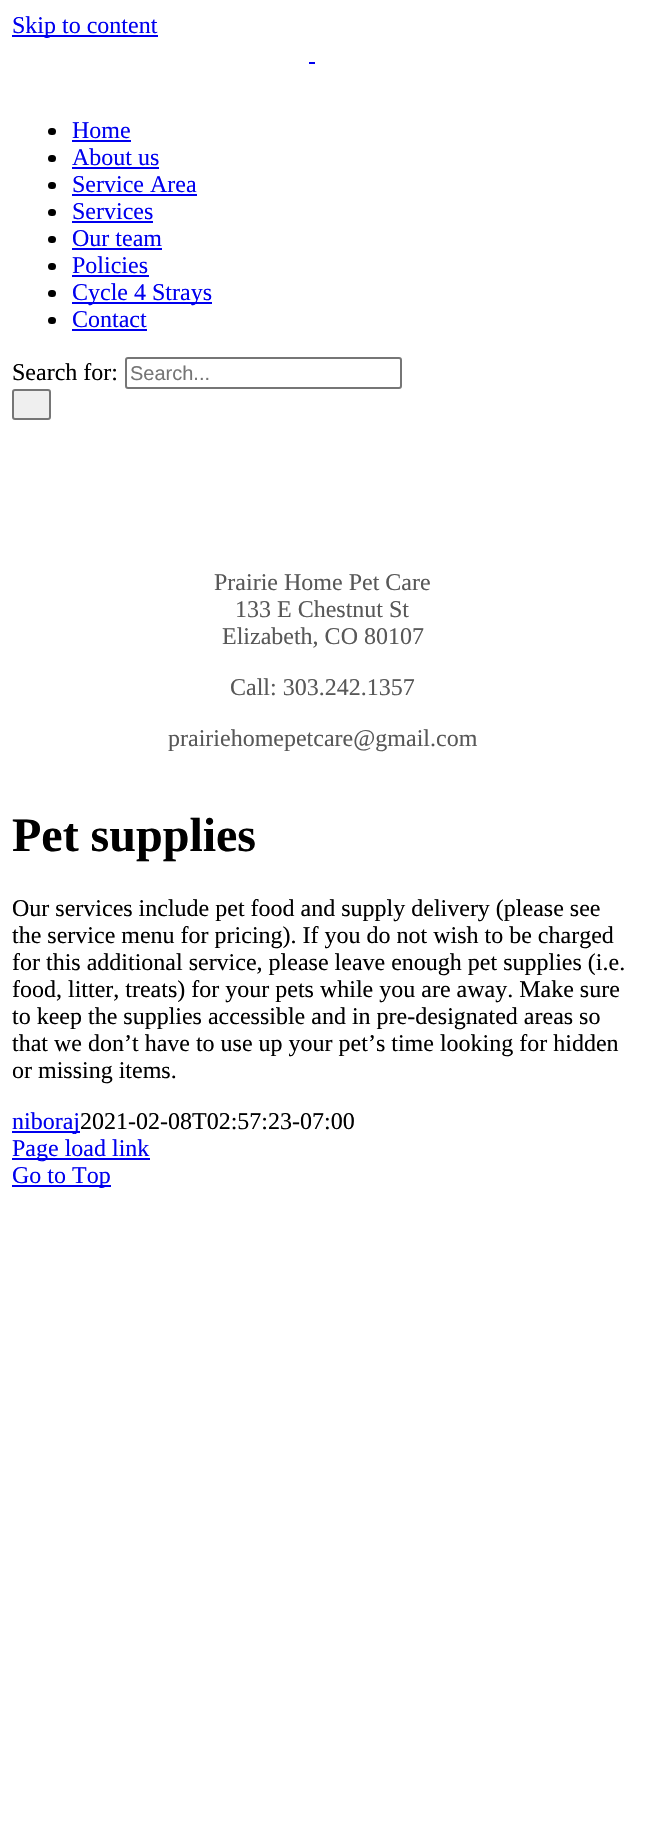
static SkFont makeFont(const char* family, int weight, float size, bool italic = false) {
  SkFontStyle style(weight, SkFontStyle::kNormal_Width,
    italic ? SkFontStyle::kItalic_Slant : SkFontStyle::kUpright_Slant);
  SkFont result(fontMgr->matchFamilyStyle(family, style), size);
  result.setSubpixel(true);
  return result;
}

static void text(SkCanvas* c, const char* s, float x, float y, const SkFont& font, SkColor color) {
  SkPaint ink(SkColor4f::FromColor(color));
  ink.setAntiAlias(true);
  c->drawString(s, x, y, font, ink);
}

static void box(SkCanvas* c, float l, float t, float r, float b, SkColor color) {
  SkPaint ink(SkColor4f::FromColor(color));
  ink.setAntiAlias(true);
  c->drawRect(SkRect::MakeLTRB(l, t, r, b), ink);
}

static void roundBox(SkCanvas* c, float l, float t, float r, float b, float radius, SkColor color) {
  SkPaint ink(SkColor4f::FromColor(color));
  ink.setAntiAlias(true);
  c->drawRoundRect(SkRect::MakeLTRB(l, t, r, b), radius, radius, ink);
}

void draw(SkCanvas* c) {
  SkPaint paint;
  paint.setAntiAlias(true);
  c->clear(0xffffffff);
  box(c, 12, 35, 158, 37, 0xff0000ee);
  SkFont face1 = makeFont("Liberation Serif", 400, 24);
  text(c, "Skip to content", 12, 33, face1, 0xff0000ee);
  box(c, 309, 62, 315, 64, 0xff0000ee);
  roundBox(c, 48, 128, 56, 135, 3.5f, 0xff000000);
  text(c, "Home", 72, 138, face1, 0xff0000ee);
  box(c, 72, 140, 131, 142, 0xff0000ee);
  roundBox(c, 48, 155, 56, 162, 3.5f, 0xff000000);
  text(c, "About us", 72, 165, face1, 0xff0000ee);
  box(c, 72, 167, 159, 169, 0xff0000ee);
  roundBox(c, 48, 182, 56, 189, 3.5f, 0xff000000);
  text(c, "Service Area", 72, 192, face1, 0xff0000ee);
  box(c, 72, 194, 197, 196, 0xff0000ee);
  roundBox(c, 48, 209, 56, 216, 3.5f, 0xff000000);
  text(c, "Services", 72, 219, face1, 0xff0000ee);
  box(c, 72, 221, 153, 223, 0xff0000ee);
  roundBox(c, 48, 236, 56, 243, 3.5f, 0xff000000);
  text(c, "Our team", 72, 246, face1, 0xff0000ee);
  box(c, 72, 248, 162, 250, 0xff0000ee);
  roundBox(c, 48, 263, 56, 270, 3.5f, 0xff000000);
  text(c, "Policies", 72, 273, face1, 0xff0000ee);
  box(c, 72, 275, 149, 277, 0xff0000ee);
  roundBox(c, 48, 290, 56, 297, 3.5f, 0xff000000);
  box(c, 72, 302, 212, 304, 0xff0000ee);
  text(c, "Cycle 4 Strays", 72, 300, face1, 0xff0000ee);
  roundBox(c, 48, 317, 56, 324, 3.5f, 0xff000000);
  text(c, "Contact", 72, 327, face1, 0xff0000ee);
  box(c, 72, 329, 147, 331, 0xff0000ee);
  text(c, "Search for:", 12, 380, face1, 0xff000000);
  paint.setStyle(SkPaint::kStroke_Style);
  paint.setStrokeWidth(2);
  paint.setColor(0xff767676);
  c->drawRoundRect(SkRect::MakeLTRB(126, 358, 401, 388), 2, 2, paint);
  SkFont face2 = makeFont("Liberation Sans", 400, 20);
  text(c, "Search...", 130, 380, face2, 0xff757575);
  paint.setStyle(SkPaint::kFill_Style);
  paint.setColor(0xffefefef);
  c->drawRoundRect(SkRect::MakeLTRB(13, 390, 50, 419), 2, 2, paint);
  paint.setStyle(SkPaint::kStroke_Style);
  paint.setColor(0xff767676);
  c->drawRoundRect(SkRect::MakeLTRB(13, 390, 50, 419), 2, 2, paint);
  text(c, "Prairie Home Pet Care", 214, 590, face1, 0xff585858);
  text(c, "133 E Chestnut St", 235, 617, face1, 0xff585858);
  text(c, "Elizabeth, CO 80107", 222, 644, face1, 0xff585858);
  text(c, "Call: 303.242.1357", 230, 695, face1, 0xff585858);
  text(c, "prairiehomepetcare@gmail.com", 168, 746, face1, 0xff585858);
  SkFont face3 = makeFont("Liberation Serif", 700, 48);
  text(c, "Pet supplies", 12, 851, face3, 0xff000000);
  text(c, "Our services include pet food and supply delivery (please see", 12, 916, face1, 0xff000000);
  text(c, "the service menu for pricing). If you do not wish to be charged", 12, 943, face1, 0xff000000);
  text(c, "for this additional service, please leave enough pet supplies (i.e.", 12, 970, face1, 0xff000000);
  text(c, "food, litter, treats) for your pets while you are away. Make sure", 12, 997, face1, 0xff000000);
  text(c, "to keep the supplies accessible and in pre-designated areas so", 12, 1024, face1, 0xff000000);
  text(c, "that we don’t have to use up your pet’s time looking for hidden", 12, 1051, face1, 0xff000000);
  text(c, "or missing items.", 12, 1078, face1, 0xff000000);
  box(c, 12, 1131, 80, 1133, 0xff0000ee);
  text(c, "niboraj", 12, 1129, face1, 0xff0000ee);
  text(c, "2021-02-08T02:57:23-07:00", 80, 1129, face1, 0xff000000);
  box(c, 12, 1158, 150, 1160, 0xff0000ee);
  text(c, "Page load link", 12, 1156, face1, 0xff0000ee);
  box(c, 12, 1185, 111, 1187, 0xff0000ee);
  text(c, "Go to Top", 12, 1183, face1, 0xff0000ee);
}
